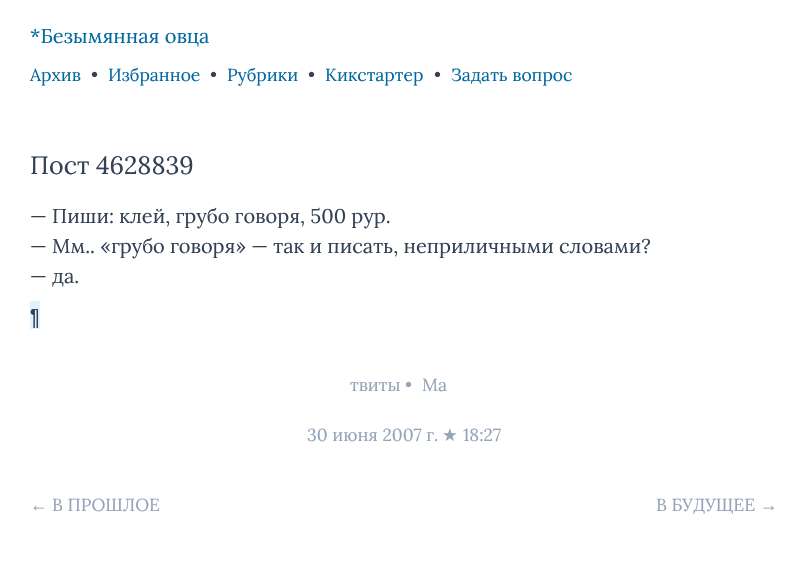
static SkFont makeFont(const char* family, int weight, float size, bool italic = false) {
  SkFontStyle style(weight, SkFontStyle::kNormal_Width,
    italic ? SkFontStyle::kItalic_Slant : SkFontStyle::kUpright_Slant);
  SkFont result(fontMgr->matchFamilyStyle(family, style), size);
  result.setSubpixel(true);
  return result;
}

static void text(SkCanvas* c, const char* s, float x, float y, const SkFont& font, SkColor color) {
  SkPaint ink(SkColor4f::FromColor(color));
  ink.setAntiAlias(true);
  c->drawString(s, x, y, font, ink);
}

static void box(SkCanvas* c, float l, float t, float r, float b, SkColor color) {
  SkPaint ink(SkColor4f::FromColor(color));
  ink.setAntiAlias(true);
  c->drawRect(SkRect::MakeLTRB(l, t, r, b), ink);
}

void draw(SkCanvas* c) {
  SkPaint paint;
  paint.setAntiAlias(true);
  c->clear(0xffffffff);
  SkFont face1 = makeFont("Lora", 400, 20);
  text(c, "*Безымянная овца", 30, 43, face1, 0xff0369a1);
  SkFont face2 = makeFont("Lora", 400, 17.5f);
  text(c, "Архив", 30, 81, face2, 0xff0369a1);
  text(c, "•", 91, 81, face2, 0xff334155);
  text(c, "Избранное", 108, 81, face2, 0xff0369a1);
  text(c, "•", 210, 81, face2, 0xff334155);
  text(c, "Рубрики", 227, 81, face2, 0xff0369a1);
  text(c, "•", 308, 81, face2, 0xff334155);
  text(c, "Кикстартер", 325, 81, face2, 0xff0369a1);
  text(c, "•", 434, 81, face2, 0xff334155);
  text(c, "Задать вопрос", 451, 81, face2, 0xff0369a1);
  SkFont face3 = makeFont("Lora", 400, 25);
  text(c, "Пост 4628839", 30, 174, face3, 0xff334155);
  text(c, "— Пиши: клей, грубо говоря, 500 рур.", 30, 223, face1, 0xff334155);
  text(c, "— Мм.. «грубо говоря» — так и писать, неприличными словами?", 30, 253, face1, 0xff334155);
  text(c, "— да.", 30, 283, face1, 0xff334155);
  box(c, 30, 301, 40, 329, 0xffe0f2fe);
  text(c, "¶", 30, 323, face1, 0xff334155);
  text(c, "твиты", 350, 391, face2, 0xff94a3b8);
  text(c, "•", 405, 391, face2, 0xff94a3b8);
  text(c, "Ма", 422, 391, face2, 0xff94a3b8);
  text(c, "30 июня 2007 г.", 307, 441, face2, 0xff94a3b8);
  SkFont face4 = makeFont("DejaVu Sans", 400, 17.5f);
  text(c, "★", 442, 441, face4, 0xff94a3b8);
  text(c, "18:27", 463, 441, face2, 0xff94a3b8);
  SkFont face5 = makeFont("Liberation Serif", 400, 17.5f);
  text(c, "←", 30, 511, face5, 0xff94a3b8);
  text(c, "В ПРОШЛОЕ", 52, 511, face2, 0xff94a3b8);
  text(c, "В БУДУЩЕЕ", 656, 511, face2, 0xff94a3b8);
  text(c, "→", 760, 511, face5, 0xff94a3b8);
}
